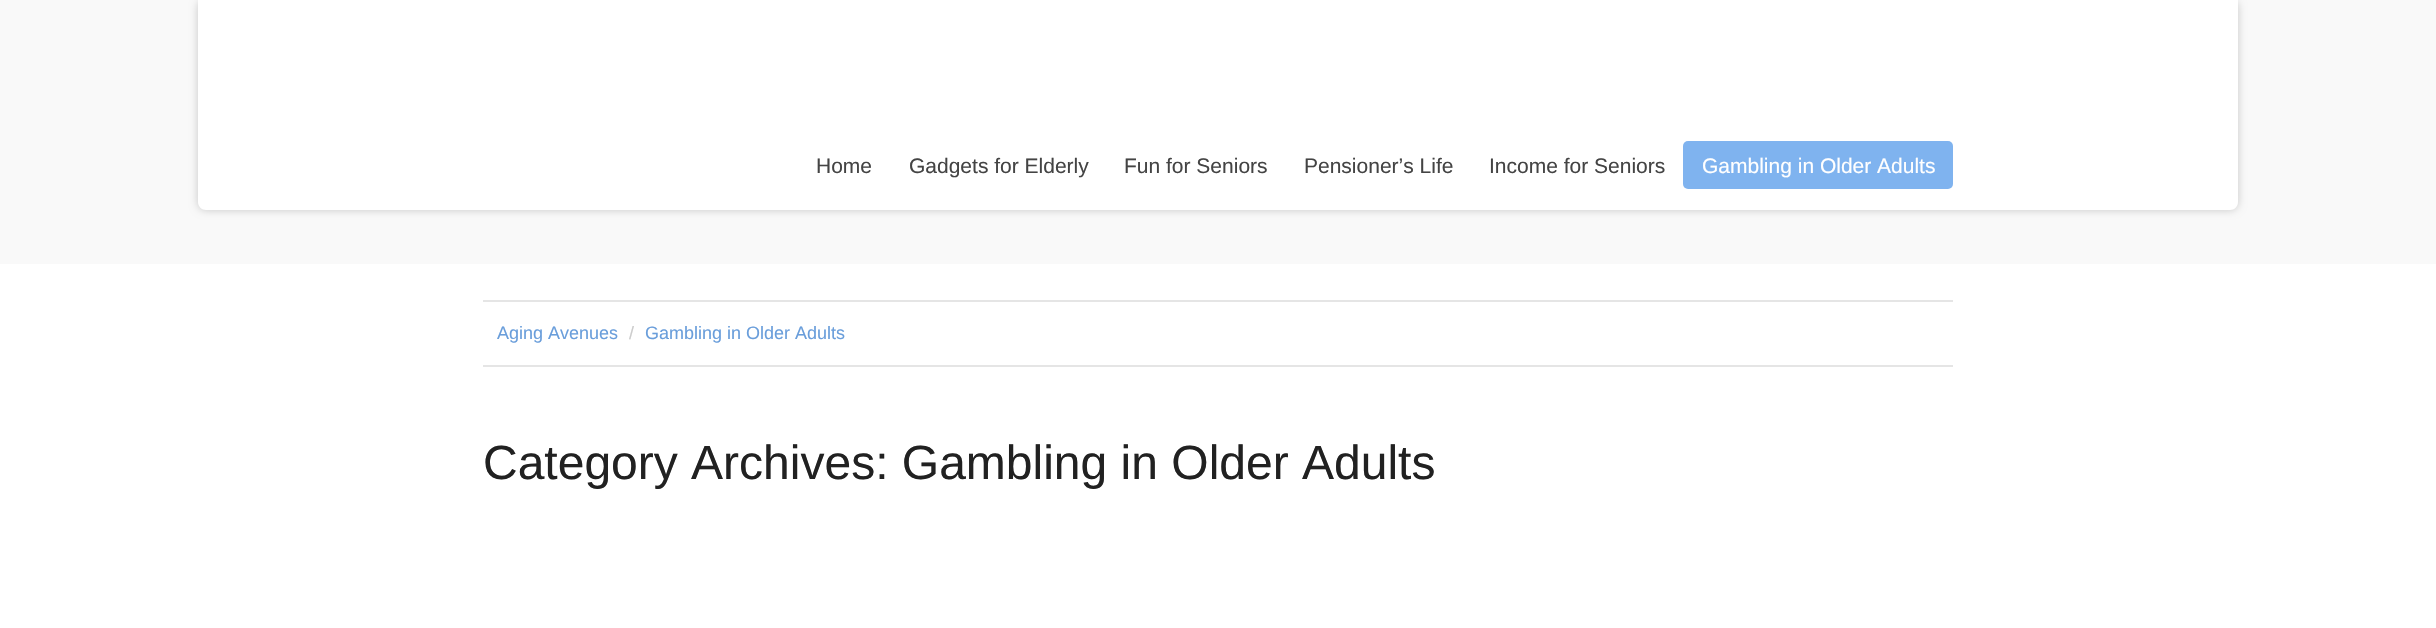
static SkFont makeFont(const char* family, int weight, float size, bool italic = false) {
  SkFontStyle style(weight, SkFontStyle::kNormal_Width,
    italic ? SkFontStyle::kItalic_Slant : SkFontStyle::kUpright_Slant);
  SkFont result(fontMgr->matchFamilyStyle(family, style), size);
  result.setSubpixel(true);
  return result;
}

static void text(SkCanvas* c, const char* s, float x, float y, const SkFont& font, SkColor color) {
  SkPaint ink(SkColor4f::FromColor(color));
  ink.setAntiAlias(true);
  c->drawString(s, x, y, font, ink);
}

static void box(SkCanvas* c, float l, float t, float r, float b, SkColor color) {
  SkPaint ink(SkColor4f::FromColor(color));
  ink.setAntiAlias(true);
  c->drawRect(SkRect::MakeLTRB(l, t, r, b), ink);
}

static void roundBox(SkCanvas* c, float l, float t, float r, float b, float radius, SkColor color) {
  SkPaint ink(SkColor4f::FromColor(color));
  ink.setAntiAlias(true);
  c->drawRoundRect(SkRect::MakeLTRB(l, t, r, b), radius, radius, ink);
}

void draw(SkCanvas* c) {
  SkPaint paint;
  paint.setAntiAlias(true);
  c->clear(0xfff9f9f9);
  paint.setColor(0x33000000);
  paint.setMaskFilter(SkMaskFilter::MakeBlur(kNormal_SkBlurStyle, 4.5f));
  c->drawRoundRect(SkRect::MakeLTRB(198, 0, 2238, 210), 8, 8, paint);
  paint.setMaskFilter(nullptr);
  paint.setColor(0xffffffff);
  c->drawPath(SkPathBuilder().moveTo(198, 0).lineTo(2238, 0).lineTo(2238, 202).cubicTo(2238, 206.5f, 2234.5f, 210, 2230, 210).lineTo(206, 210).cubicTo(201.5f, 210, 198, 206.5f, 198, 202).close().detach(), paint);
  SkFont face1 = makeFont("Liberation Sans", 400, 21);
  text(c, "Home", 816, 173, face1, 0xff444444);
  text(c, "Gadgets for Elderly", 909, 173, face1, 0xff444444);
  text(c, "Fun for Seniors", 1124, 173, face1, 0xff444444);
  text(c, "Pensioner’s Life", 1304, 173, face1, 0xff444444);
  text(c, "Income for Seniors", 1489, 173, face1, 0xff444444);
  roundBox(c, 1683, 141, 1953, 189, 5, 0xff7fb3ef);
  text(c, "Gambling in Older Adults", 1702, 173, face1, 0xffffffff);
  box(c, 0, 264, 2436, 628, 0xffffffff);
  box(c, 483, 300, 1953, 302, 0xffe5e5e5);
  box(c, 483, 365, 1953, 367, 0xffe5e5e5);
  SkFont face2 = makeFont("Liberation Sans", 400, 18);
  text(c, "Aging Avenues", 497, 339, face2, 0xff6a9edb);
  text(c, "/", 629, 339, face2, 0xffcccccc);
  text(c, "Gambling in Older Adults", 645, 339, face2, 0xff6a9edb);
  SkFont face3 = makeFont("Liberation Sans", 400, 48);
  text(c, "Category Archives: Gambling in Older Adults", 483, 479, face3, 0xff212121);
}
